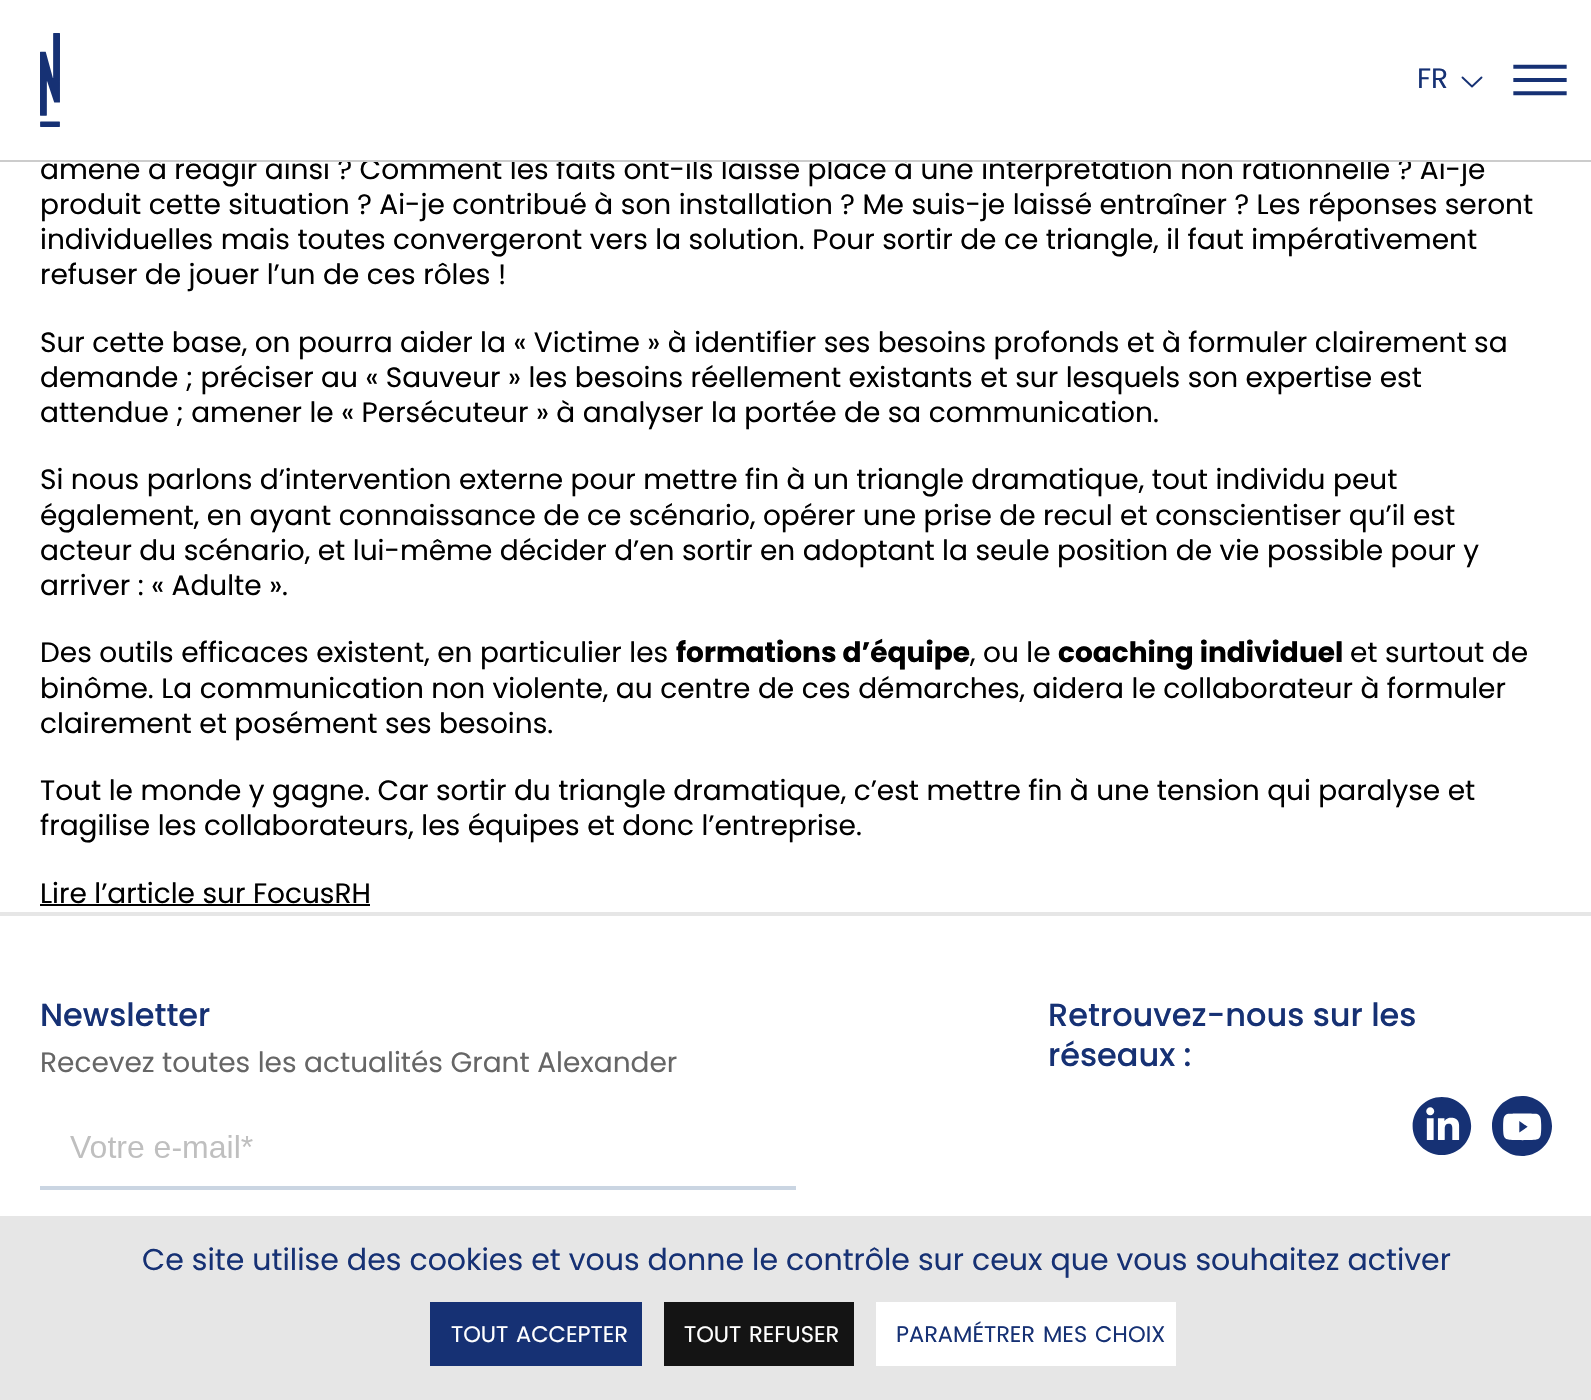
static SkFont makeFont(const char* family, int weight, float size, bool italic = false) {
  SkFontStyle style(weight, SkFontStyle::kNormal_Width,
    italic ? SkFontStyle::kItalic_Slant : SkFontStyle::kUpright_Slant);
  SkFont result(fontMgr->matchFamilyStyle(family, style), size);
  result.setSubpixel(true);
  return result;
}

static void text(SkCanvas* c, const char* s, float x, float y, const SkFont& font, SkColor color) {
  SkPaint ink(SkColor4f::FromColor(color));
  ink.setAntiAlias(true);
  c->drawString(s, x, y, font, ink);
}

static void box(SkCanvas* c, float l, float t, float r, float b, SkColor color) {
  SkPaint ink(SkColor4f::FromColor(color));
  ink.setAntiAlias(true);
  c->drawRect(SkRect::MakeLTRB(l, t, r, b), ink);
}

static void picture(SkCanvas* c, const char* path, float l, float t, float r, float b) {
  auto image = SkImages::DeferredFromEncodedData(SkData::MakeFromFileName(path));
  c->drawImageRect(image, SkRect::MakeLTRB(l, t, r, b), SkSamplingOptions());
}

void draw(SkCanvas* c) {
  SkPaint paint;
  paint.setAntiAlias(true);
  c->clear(0xffffffff);
  SkFont face1 = makeFont("Poppins", 400, 28);
  text(c, "amené à réagir ainsi ? Comment les faits ont-ils laissé place à une interprétation non rationnelle ? Ai-je", 40, 179, face1, 0xff000000);
  box(c, 129, 157, 1467, 160, 0xffffffff);
  box(c, 0, 160, 1591, 162, 0xffcccccc);
  picture(c, "img_01.png", 40, 33, 60, 127);
  text(c, "FR", 1417, 88, face1, 0xff163174);
  paint.setStyle(SkPaint::kStroke_Style);
  paint.setStrokeWidth(1.9f);
  paint.setStrokeCap(SkPaint::kRound_Cap);
  paint.setStrokeJoin(SkPaint::kRound_Join);
  paint.setColor(0xff163174);
  c->drawPath(SkPathBuilder().moveTo(1481.5f, 77.5f).lineTo(1472, 86.5f).lineTo(1462.5f, 77.5f).detach(), paint);
  picture(c, "img_02.png", 1513, 64, 1567, 96);
  text(c, "produit cette situation ? Ai-je contribué à son installation ? Me suis-je laissé entraîner ? Les réponses seront", 40, 214, face1, 0xff000000);
  text(c, "individuelles mais toutes convergeront vers la solution. Pour sortir de ce triangle, il faut impérativement", 40, 249, face1, 0xff000000);
  text(c, "refuser de jouer l’un de ces rôles !", 40, 284, face1, 0xff000000);
  text(c, "Sur cette base, on pourra aider la « Victime » à identifier ses besoins profonds et à formuler clairement sa", 40, 352, face1, 0xff000000);
  text(c, "demande ; préciser au « Sauveur » les besoins réellement existants et sur lesquels son expertise est", 40, 387, face1, 0xff000000);
  text(c, "attendue ; amener le « Persécuteur » à analyser la portée de sa communication.", 40, 422, face1, 0xff000000);
  text(c, "Si nous parlons d’intervention externe pour mettre fin à un triangle dramatique, tout individu peut", 40, 489, face1, 0xff000000);
  text(c, "également, en ayant connaissance de ce scénario, opérer une prise de recul et conscientiser qu’il est", 40, 525, face1, 0xff000000);
  text(c, "acteur du scénario, et lui-même décider d’en sortir en adoptant la seule position de vie possible pour y", 40, 560, face1, 0xff000000);
  text(c, "arriver : « Adulte ».", 40, 595, face1, 0xff000000);
  text(c, "Des outils efficaces existent, en particulier les", 40, 662, face1, 0xff000000);
  SkFont face2 = makeFont("Poppins", 700, 28);
  text(c, "formations d’équipe", 676, 662, face2, 0xff000000);
  text(c, ", ou le", 970, 662, face1, 0xff000000);
  text(c, "coaching individuel", 1058, 662, face2, 0xff000000);
  text(c, "et surtout de", 1350, 662, face1, 0xff000000);
  text(c, "binôme. La communication non violente, au centre de ces démarches, aidera le collaborateur à formuler", 40, 698, face1, 0xff000000);
  text(c, "clairement et posément ses besoins.", 40, 733, face1, 0xff000000);
  text(c, "Tout le monde y gagne. Car sortir du triangle dramatique, c’est mettre fin à une tension qui paralyse et", 40, 800, face1, 0xff000000);
  text(c, "fragilise les collaborateurs, les équipes et donc l’entreprise.", 40, 835, face1, 0xff000000);
  text(c, "Lire l’article sur FocusRH", 40, 903, face1, 0xff000000);
  box(c, 40, 904, 370, 906, 0xff000000);
  box(c, 0, 912, 1591, 916, 0xffe6e6e6);
  SkFont face3 = makeFont("Poppins", 500, 32);
  text(c, "Newsletter", 40, 1026, face3, 0xff163174);
  text(c, "Recevez toutes les actualités Grant Alexander", 40, 1072, face1, 0xff666666);
  picture(c, "img_03.png", 40, 1135, 796, 1190);
  text(c, "Retrouvez-nous sur les", 1048, 1026, face3, 0xff163174);
  text(c, "réseaux :", 1048, 1066, face3, 0xff163174);
  picture(c, "img_04.png", 1412, 1097, 1472, 1155);
  picture(c, "img_05.png", 1492, 1096, 1552, 1156);
  box(c, 0, 1216, 1591, 1400, 0xffe6e6e6);
  SkFont face4 = makeFont("Poppins", 400, 30);
  text(c, "Ce site utilise des cookies et vous donne le contrôle sur ceux que vous souhaitez activer", 142, 1270, face4, 0xff163174);
  box(c, 430, 1302, 642, 1366, 0xff163174);
  SkFont face5 = makeFont("Poppins", 400, 22.5f);
  text(c, "TOUT", 451, 1342, face5, 0xffffffff);
  text(c, "ACCEPTER", 516, 1342, face5, 0xffffffff);
  box(c, 664, 1302, 854, 1366, 0xff141414);
  text(c, "TOUT", 684, 1342, face5, 0xffffffff);
  text(c, "REFUSER", 749, 1342, face5, 0xffffffff);
  box(c, 876, 1302, 1176, 1366, 0xffffffff);
  text(c, "PARAMÉTRER", 896, 1342, face5, 0xff163174);
  text(c, "MES", 1043, 1342, face5, 0xff163174);
  text(c, "CHOIX", 1095, 1342, face5, 0xff163174);
}
